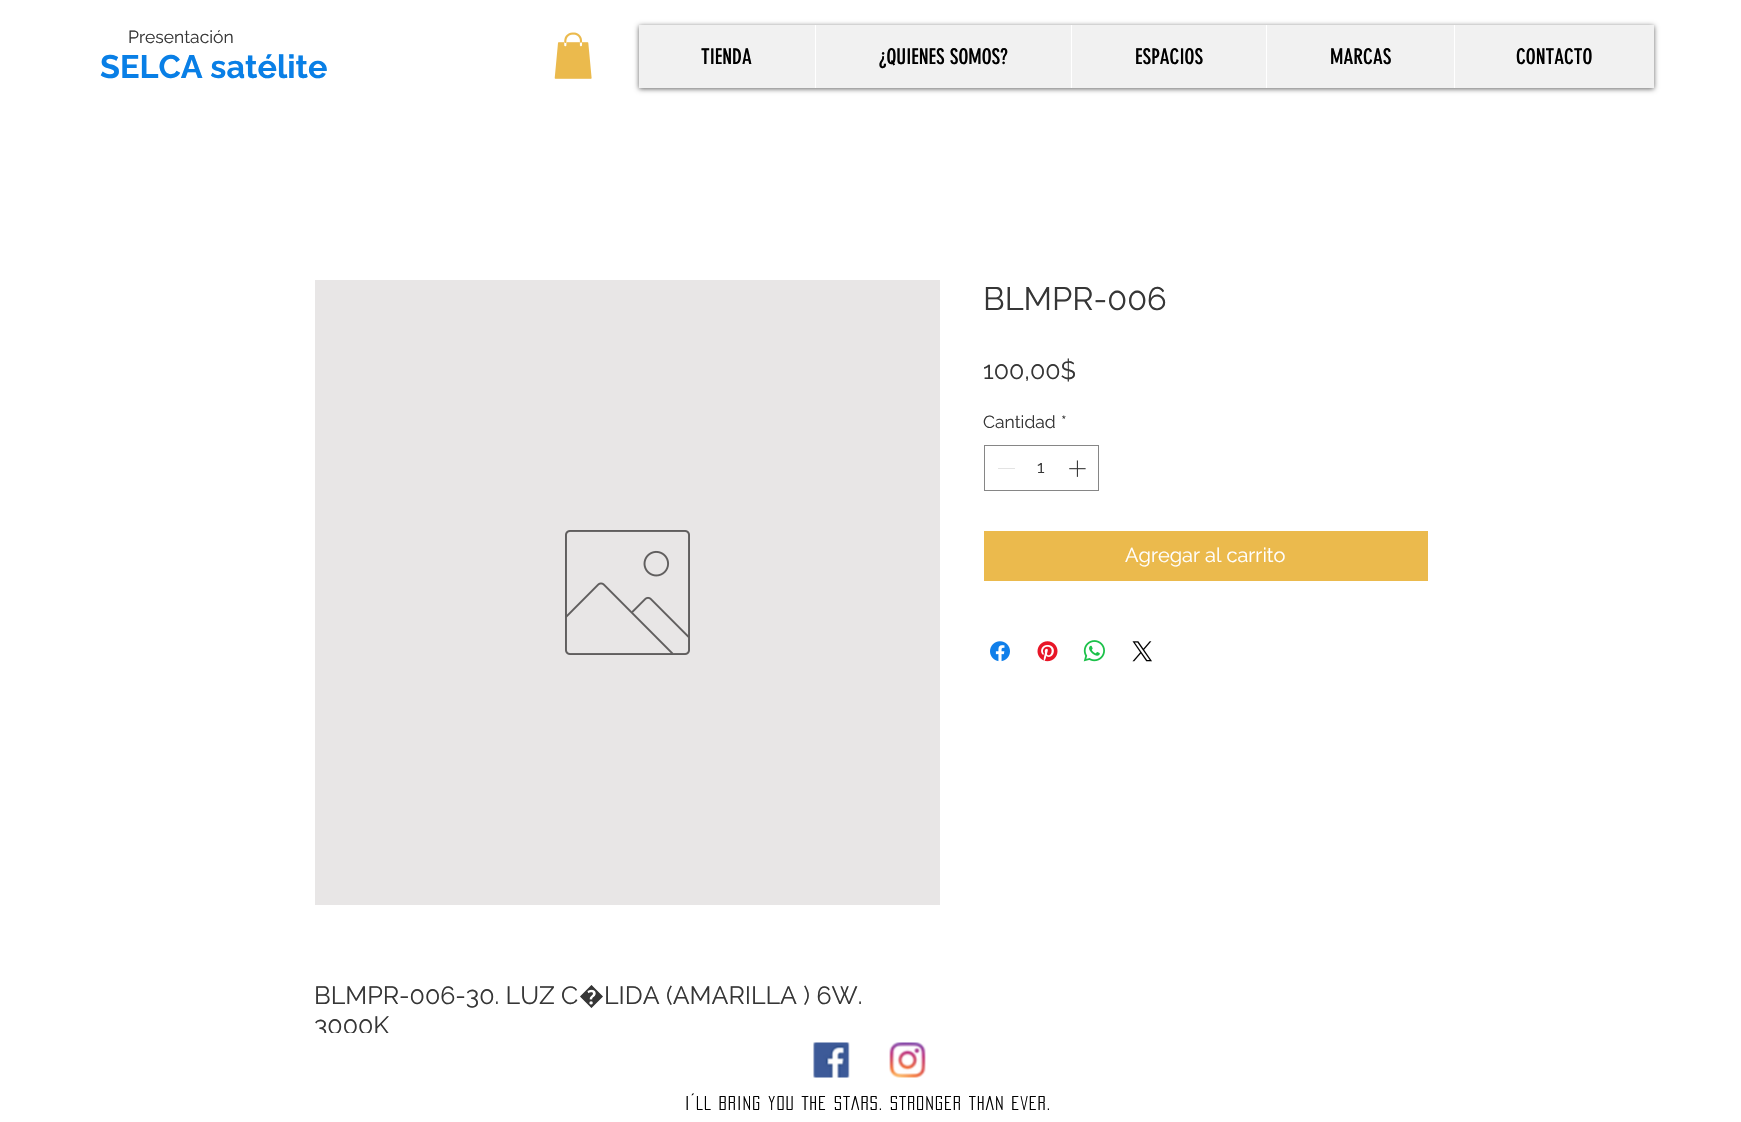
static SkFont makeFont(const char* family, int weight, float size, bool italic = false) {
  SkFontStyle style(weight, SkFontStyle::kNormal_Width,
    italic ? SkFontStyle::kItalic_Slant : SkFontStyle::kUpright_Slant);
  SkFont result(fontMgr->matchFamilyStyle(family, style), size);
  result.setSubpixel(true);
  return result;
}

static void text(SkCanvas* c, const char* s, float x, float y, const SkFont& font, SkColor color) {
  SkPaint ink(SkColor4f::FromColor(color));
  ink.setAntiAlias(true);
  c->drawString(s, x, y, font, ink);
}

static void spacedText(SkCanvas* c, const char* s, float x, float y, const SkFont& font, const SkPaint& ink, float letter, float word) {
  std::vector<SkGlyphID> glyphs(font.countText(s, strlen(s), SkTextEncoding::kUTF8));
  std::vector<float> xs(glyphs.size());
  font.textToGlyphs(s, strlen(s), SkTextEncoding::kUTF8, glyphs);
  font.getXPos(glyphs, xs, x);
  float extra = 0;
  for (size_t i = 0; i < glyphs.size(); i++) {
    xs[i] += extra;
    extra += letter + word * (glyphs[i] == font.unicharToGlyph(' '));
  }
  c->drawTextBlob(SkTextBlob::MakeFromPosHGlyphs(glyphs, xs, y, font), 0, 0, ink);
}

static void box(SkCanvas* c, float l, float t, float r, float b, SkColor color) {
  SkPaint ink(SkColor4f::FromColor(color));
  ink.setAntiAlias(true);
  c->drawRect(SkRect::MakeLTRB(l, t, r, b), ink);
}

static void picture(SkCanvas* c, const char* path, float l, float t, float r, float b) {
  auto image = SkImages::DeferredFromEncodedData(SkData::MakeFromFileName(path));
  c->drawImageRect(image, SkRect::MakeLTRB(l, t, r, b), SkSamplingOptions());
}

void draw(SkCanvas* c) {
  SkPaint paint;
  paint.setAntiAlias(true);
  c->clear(0xffffffff);
  SkFont face1 = makeFont("Raleway", 400, 17.5f);
  text(c, "Presentación", 128, 43, face1, 0xff363636);
  picture(c, "img_01.png", 554, 32, 592, 79);
  SkFont face2 = makeFont("Raleway", 700, 32.5f);
  text(c, "SELCA satélite", 100, 78, face2, 0xff097fe6);
  paint.setColor(0x99000000);
  paint.setMaskFilter(SkMaskFilter::MakeBlur(kNormal_SkBlurStyle, 2.5f));
  c->drawRect(SkRect::MakeLTRB(639, 26, 1654, 89), paint);
  paint.setMaskFilter(nullptr);
  box(c, 639, 25, 1654, 88, 0xfff1f1f1);
  SkFont face3 = makeFont("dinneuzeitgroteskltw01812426", 400, 21.25f);
  text(c, "TIENDA", 701, 64, face3, 0xff000000);
  box(c, 815, 25, 816, 88, 0xffffffff);
  text(c, "¿QUIENES SOMOS?", 879, 64, face3, 0xff000000);
  box(c, 1071, 25, 1072, 88, 0xffffffff);
  text(c, "ESPACIOS", 1135, 64, face3, 0xff000000);
  box(c, 1266, 25, 1267, 88, 0xffffffff);
  text(c, "MARCAS", 1330, 64, face3, 0xff000000);
  box(c, 1454, 25, 1455, 88, 0xffffffff);
  text(c, "CONTACTO", 1516, 64, face3, 0xff000000);
  SkFont face4 = makeFont("Raleway", 400, 32.5f);
  text(c, "BLMPR-006", 983, 310, face4, 0xff363636);
  SkFont face5 = makeFont("Raleway", 400, 25);
  text(c, "100,00$", 983, 379, face5, 0xff363636);
  text(c, "Cantidad", 983, 428, face1, 0xff363636);
  text(c, "*", 1061, 428, face1, 0xff363636);
  paint.setStyle(SkPaint::kStroke_Style);
  paint.setStrokeWidth(1);
  paint.setColor(0xff868686);
  c->drawRect(SkRect::MakeLTRB(984.5f, 445.5f, 1098.5f, 490.5f), paint);
  box(c, 998, 468, 1015, 469, 0xffe3e3e3);
  text(c, "1", 1037, 473, face1, 0xff363636);
  picture(c, "img_02.png", 1069, 460, 1086, 477);
  box(c, 984, 531, 1428, 581, 0xffebba4d);
  SkFont face6 = makeFont("Raleway", 400, 20);
  text(c, "Agregar al carrito", 1125, 562, face6, 0xffffffff);
  picture(c, "img_03.png", 990, 641, 1010, 662);
  picture(c, "img_04.png", 1037, 641, 1058, 662);
  picture(c, "img_05.png", 1083, 640, 1105, 662);
  picture(c, "img_06.png", 1132, 641, 1152, 662);
  box(c, 315, 280, 940, 905, 0xffe8e6e6);
  picture(c, "img_07.png", 565, 530, 690, 655);
  text(c, "BLMPR-006-30. LUZ C", 314, 1004, face5, 0xff363636);
  SkFont face7 = makeFont("Noto Sans", 400, 25);
  text(c, "�", 579, 1004, face7, 0xff363636);
  text(c, "LIDA (AMARILLA ) 6W.", 604, 1004, face5, 0xff363636);
  text(c, "3000K", 314, 1034, face5, 0xff363636);
  box(c, 315, 1033, 390, 1038, 0xffffffff);
  picture(c, "img_08.png", 813, 1042, 850, 1078);
  picture(c, "img_09.png", 889, 1042, 926, 1078);
  SkFont face8 = makeFont("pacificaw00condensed", 400, 17.5f);
  paint.setStyle(SkPaint::kFill_Style);
  paint.setColor(0xff000000);
  spacedText(c, "I´LL BRING YOU THE STARS. STRONGER THAN EVER.", 685, 1110, face8, paint, 1.4f, 0);
}
